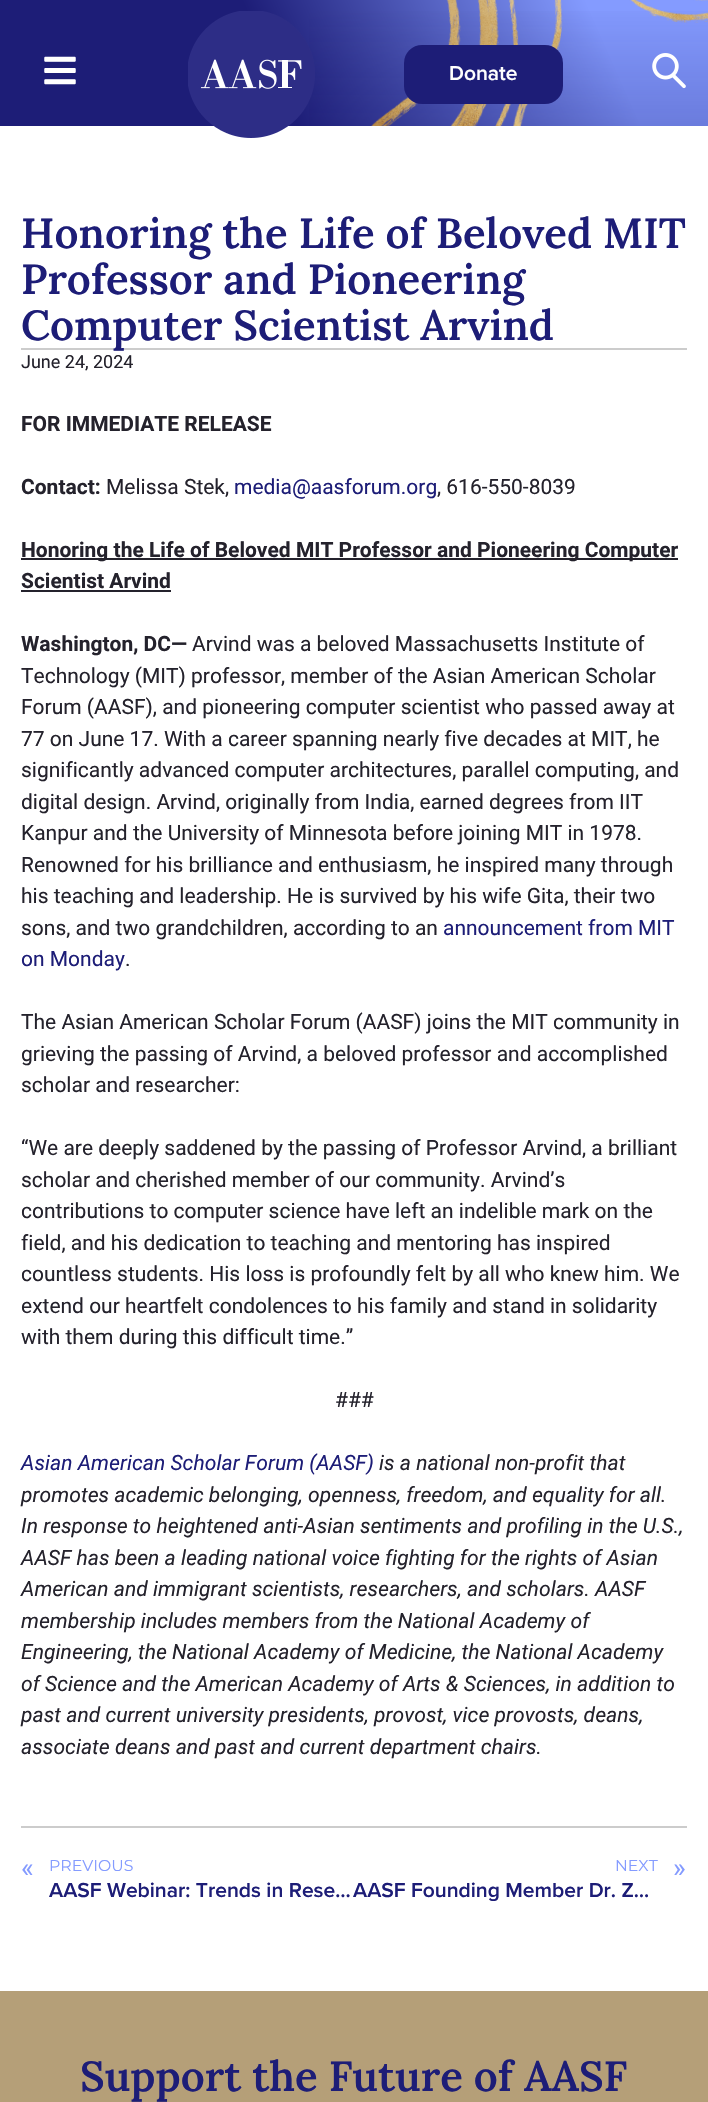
static SkFont makeFont(const char* family, int weight, float size, bool italic = false) {
  SkFontStyle style(weight, SkFontStyle::kNormal_Width,
    italic ? SkFontStyle::kItalic_Slant : SkFontStyle::kUpright_Slant);
  SkFont result(fontMgr->matchFamilyStyle(family, style), size);
  result.setSubpixel(true);
  return result;
}

static void text(SkCanvas* c, const char* s, float x, float y, const SkFont& font, SkColor color) {
  SkPaint ink(SkColor4f::FromColor(color));
  ink.setAntiAlias(true);
  c->drawString(s, x, y, font, ink);
}

static void box(SkCanvas* c, float l, float t, float r, float b, SkColor color) {
  SkPaint ink(SkColor4f::FromColor(color));
  ink.setAntiAlias(true);
  c->drawRect(SkRect::MakeLTRB(l, t, r, b), ink);
}

static void roundBox(SkCanvas* c, float l, float t, float r, float b, float radius, SkColor color) {
  SkPaint ink(SkColor4f::FromColor(color));
  ink.setAntiAlias(true);
  c->drawRoundRect(SkRect::MakeLTRB(l, t, r, b), radius, radius, ink);
}

static void picture(SkCanvas* c, const char* path, float l, float t, float r, float b) {
  auto image = SkImages::DeferredFromEncodedData(SkData::MakeFromFileName(path));
  c->drawImageRect(image, SkRect::MakeLTRB(l, t, r, b), SkSamplingOptions());
}

void draw(SkCanvas* c) {
  SkPaint paint;
  paint.setAntiAlias(true);
  c->clear(0xffffffff);
  {
    const SkColor colors[] = {0xff1d1d77, 0xff849bff};
    const float stops[] = {0.39f, 0.84f};
    const SkPoint ends[] = {{35, 205}, {673, -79}};
    paint.setShader(SkGradientShader::MakeLinear(ends, colors, stops, 2, SkTileMode::kClamp));
    paint.setAlpha(255);
  }
  c->drawRect(SkRect::MakeLTRB(0, 0, 708, 126), paint);
  {
    const SkColor colors[] = {0x001d1d77, 0x401d1d77};
    const float stops[] = {0, 1};
    const SkPoint ends[] = {{354, 0}, {354, 126}};
    paint.setShader(SkGradientShader::MakeLinear(ends, colors, stops, 2, SkTileMode::kClamp));
    paint.setAlpha(255);
  }
  c->drawRect(SkRect::MakeLTRB(309, 11, 708, 126), paint);
  picture(c, "img_01.png", 371, 0, 708, 126);
  picture(c, "img_02.png", 44, 56, 76, 85);
  picture(c, "img_03.png", 188, 11, 315, 138);
  roundBox(c, 404, 45, 563, 104, 18, 0xff1d1d77);
  SkFont face1 = makeFont("Proxima Nova", 600, 21);
  text(c, "Donate", 449, 80, face1, 0xffffffff);
  picture(c, "img_04.png", 652, 53, 686, 89);
  box(c, 21, 348, 687, 350, 0xffcccccc);
  SkFont face2 = makeFont("Lora", 600, 42);
  text(c, "Honoring the Life of Beloved MIT", 21, 248, face2, 0xff1d1d77);
  text(c, "Professor and Pioneering", 21, 294, face2, 0xff1d1d77);
  text(c, "Computer Scientist Arvind", 21, 340, face2, 0xff1d1d77);
  SkFont face3 = makeFont("Roboto", 400, 18);
  text(c, "June 24, 2024", 21, 368, face3, 0xff24222c);
  SkFont face4 = makeFont("Roboto", 700, 21);
  text(c, "FOR IMMEDIATE RELEASE", 21, 431, face4, 0xff24222c);
  text(c, "Contact:", 21, 494, face4, 0xff24222c);
  SkFont face5 = makeFont("Roboto", 400, 21);
  text(c, "Melissa Stek,", 106, 494, face5, 0xff24222c);
  text(c, "media@aasforum.org", 234, 494, face5, 0xff1d1d77);
  text(c, ", 616-550-8039", 437, 494, face5, 0xff24222c);
  box(c, 21, 558, 678, 560, 0xff24222c);
  text(c, "Honoring the Life of Beloved MIT Professor and Pioneering Computer", 21, 557, face4, 0xff24222c);
  text(c, "Scientist Arvind", 21, 588, face4, 0xff24222c);
  box(c, 21, 590, 171, 592, 0xff24222c);
  text(c, "Washington, DC—", 21, 651, face4, 0xff24222c);
  text(c, "Arvind was a beloved Massachusetts Institute of", 192, 651, face5, 0xff24222c);
  text(c, "Technology (MIT) professor, member of the Asian American Scholar", 21, 683, face5, 0xff24222c);
  text(c, "Forum (AASF), and pioneering computer scientist who passed away at", 21, 714, face5, 0xff24222c);
  text(c, "77 on June 17. With a career spanning nearly five decades at MIT, he", 21, 746, face5, 0xff24222c);
  text(c, "significantly advanced computer architectures, parallel computing, and", 21, 777, face5, 0xff24222c);
  text(c, "digital design. Arvind, originally from India, earned degrees from IIT", 21, 809, face5, 0xff24222c);
  text(c, "Kanpur and the University of Minnesota before joining MIT in 1978.", 21, 840, face5, 0xff24222c);
  text(c, "Renowned for his brilliance and enthusiasm, he inspired many through", 21, 872, face5, 0xff24222c);
  text(c, "his teaching and leadership. He is survived by his wife Gita, their two", 21, 903, face5, 0xff24222c);
  text(c, "sons, and two grandchildren, according to an", 21, 935, face5, 0xff24222c);
  text(c, "announcement from MIT", 443, 935, face5, 0xff1d1d77);
  text(c, "on Monday", 21, 966, face5, 0xff1d1d77);
  text(c, ".", 125, 966, face5, 0xff24222c);
  text(c, "The Asian American Scholar Forum (AASF) joins the MIT community in", 21, 1029, face5, 0xff24222c);
  text(c, "grieving the passing of Arvind, a beloved professor and accomplished", 21, 1061, face5, 0xff24222c);
  text(c, "scholar and researcher:", 21, 1092, face5, 0xff24222c);
  text(c, "“We are deeply saddened by the passing of Professor Arvind, a brilliant", 21, 1155, face5, 0xff24222c);
  text(c, "scholar and cherished member of our community. Arvind’s", 21, 1187, face5, 0xff24222c);
  text(c, "contributions to computer science have left an indelible mark on the", 21, 1218, face5, 0xff24222c);
  text(c, "field, and his dedication to teaching and mentoring has inspired", 21, 1250, face5, 0xff24222c);
  text(c, "countless students. His loss is profoundly felt by all who knew him. We", 21, 1281, face5, 0xff24222c);
  text(c, "extend our heartfelt condolences to his family and stand in solidarity", 21, 1313, face5, 0xff24222c);
  text(c, "with them during this difficult time.”", 21, 1344, face5, 0xff24222c);
  text(c, "###", 335, 1407, face5, 0xff24222c);
  SkFont face6 = makeFont("Roboto", 400, 21, true);
  text(c, "Asian American Scholar Forum (AASF)", 21, 1470, face6, 0xff1d1d77);
  text(c, "is a national non-profit that", 379, 1470, face6, 0xff24222c);
  text(c, "promotes academic belonging, openness, freedom, and equality for all.", 21, 1502, face6, 0xff24222c);
  text(c, "In response to heightened anti-Asian sentiments and profiling in the U.S.,", 21, 1533, face6, 0xff24222c);
  text(c, "AASF has been a leading national voice fighting for the rights of Asian", 21, 1565, face6, 0xff24222c);
  text(c, "American and immigrant scientists, researchers, and scholars. AASF", 21, 1596, face6, 0xff24222c);
  text(c, "membership includes members from the National Academy of", 21, 1628, face6, 0xff24222c);
  text(c, "Engineering, the National Academy of Medicine, the National Academy", 21, 1659, face6, 0xff24222c);
  text(c, "of Science and the American Academy of Arts & Sciences, in addition to", 21, 1691, face6, 0xff24222c);
  text(c, "past and current university presidents, provost, vice provosts, deans,", 21, 1722, face6, 0xff24222c);
  text(c, "associate deans and past and current department chairs.", 21, 1754, face6, 0xff24222c);
  box(c, 21, 1826, 687, 1828, 0xffcccccc);
  SkFont face7 = makeFont("Roboto", 400, 27);
  text(c, "«", 21, 1877, face7, 0xff849bff);
  SkFont face8 = makeFont("Montserrat", 400, 15.75f);
  text(c, "PREVIOUS", 49, 1871, face8, 0xff849bff);
  text(c, "AASF Webinar: Trends in Rese…", 49, 1897, face1, 0xff1d1d77);
  text(c, "NEXT", 615, 1871, face8, 0xff849bff);
  text(c, "AASF Founding Member Dr. Z…", 353, 1897, face1, 0xff1d1d77);
  text(c, "»", 673, 1877, face7, 0xff849bff);
  box(c, 0, 1991, 708, 2102, 0xffb59f78);
  text(c, "Support the Future of AASF", 80, 2091, face2, 0xff1d1d77);
}
